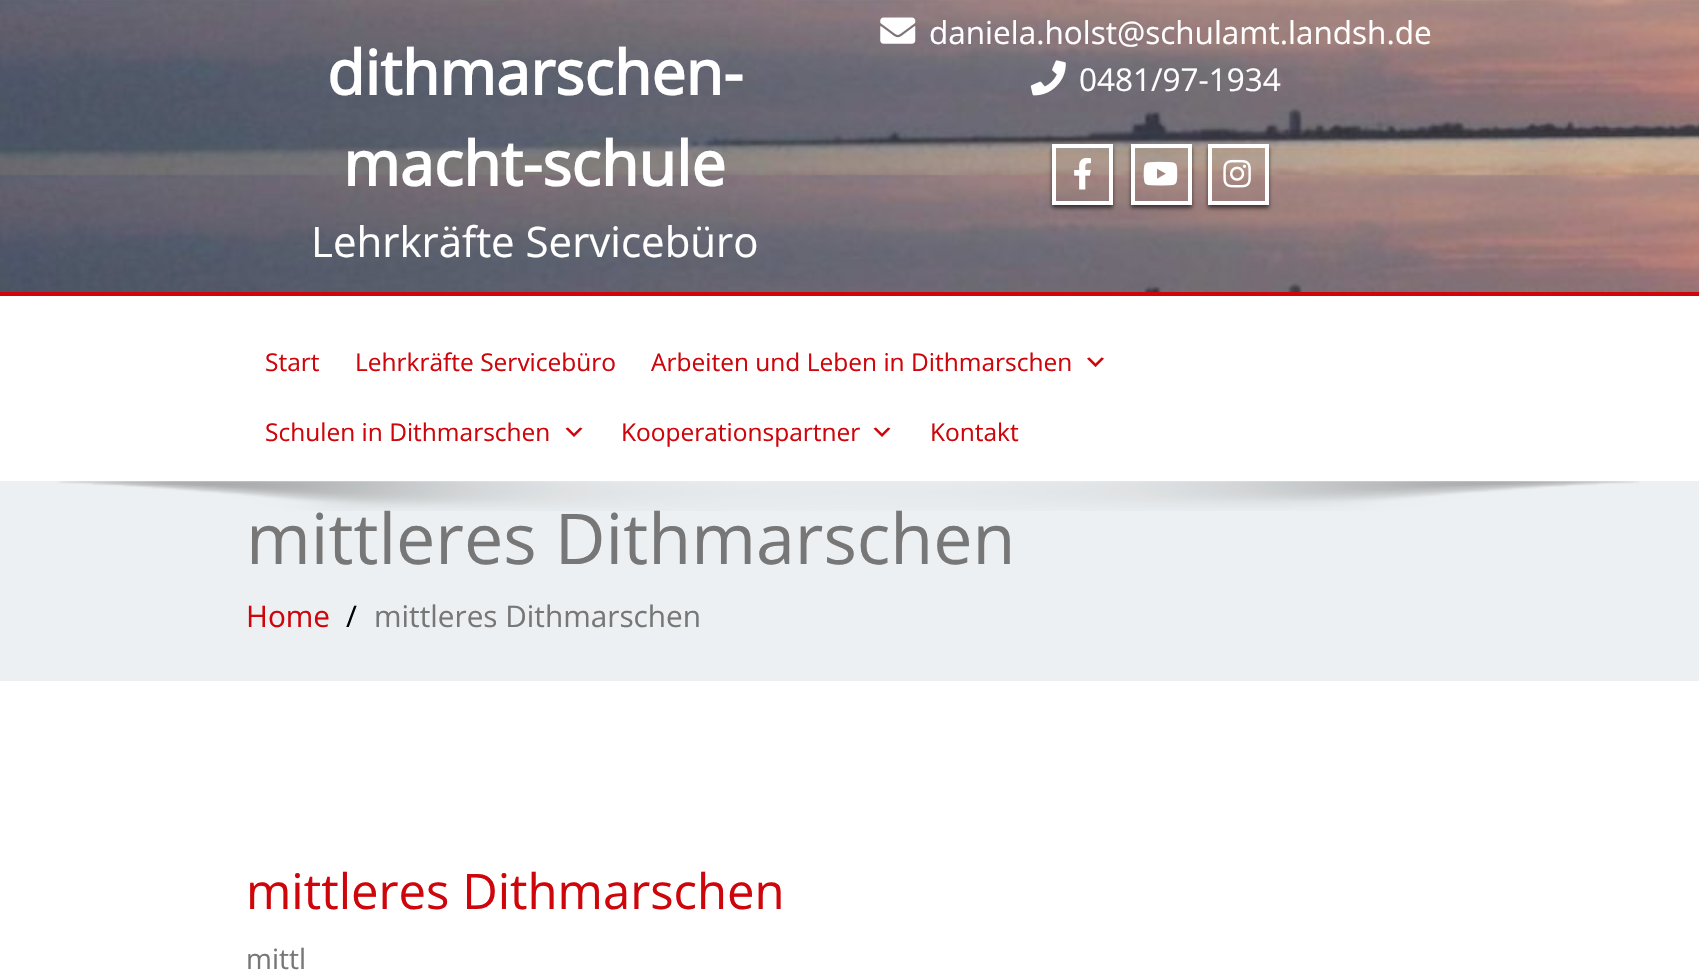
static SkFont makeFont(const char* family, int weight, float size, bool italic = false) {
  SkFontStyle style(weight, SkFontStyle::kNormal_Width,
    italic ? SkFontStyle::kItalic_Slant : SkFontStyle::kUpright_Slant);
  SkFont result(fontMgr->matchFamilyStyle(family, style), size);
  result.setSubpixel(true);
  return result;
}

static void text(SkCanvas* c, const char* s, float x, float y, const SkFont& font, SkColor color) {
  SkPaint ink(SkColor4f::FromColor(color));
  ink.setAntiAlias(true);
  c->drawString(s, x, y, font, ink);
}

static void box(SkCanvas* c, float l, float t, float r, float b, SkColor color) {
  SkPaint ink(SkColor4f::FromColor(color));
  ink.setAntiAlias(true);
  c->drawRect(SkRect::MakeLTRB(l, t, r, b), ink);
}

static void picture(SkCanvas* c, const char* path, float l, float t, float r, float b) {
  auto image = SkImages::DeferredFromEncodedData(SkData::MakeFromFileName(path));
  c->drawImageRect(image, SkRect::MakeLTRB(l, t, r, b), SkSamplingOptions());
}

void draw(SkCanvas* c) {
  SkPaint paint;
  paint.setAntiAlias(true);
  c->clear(0xffffffff);
  picture(c, "img_01.png", 0, 0, 1699, 292);
  SkFont face1 = makeFont("Open Sans", 700, 61.25f);
  text(c, "dithmarschen-", 327, 95, face1, 0xffffffff);
  text(c, "macht-schule", 343, 186, face1, 0xffffffff);
  SkFont face2 = makeFont("Open Sans", 400, 42);
  text(c, "Lehrkräfte Servicebüro", 311, 257, face2, 0xffffffff);
  picture(c, "img_02.png", 880, 17, 916, 44);
  SkFont face3 = makeFont("Open Sans", 400, 31.5f);
  text(c, "daniela.holst@schulamt.landsh.de", 929, 44, face3, 0xffffffff);
  picture(c, "img_03.png", 1030, 60, 1066, 96);
  text(c, "0481/97-1934", 1079, 91, face3, 0xffffffff);
  c->save();
  c->clipPath(SkPathBuilder(SkPathFillType::kEvenOdd).moveTo(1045, 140).lineTo(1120, 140).lineTo(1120, 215).lineTo(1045, 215).close().moveTo(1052, 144).lineTo(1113, 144).lineTo(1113, 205).lineTo(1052, 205).close().detach(), true);
  paint.setColor(0x99000000);
  paint.setMaskFilter(SkMaskFilter::MakeBlur(kNormal_SkBlurStyle, 2));
  c->drawRect(SkRect::MakeLTRB(1052, 147, 1113, 208), paint);
  paint.setMaskFilter(nullptr);
  c->restore();
  paint.setStyle(SkPaint::kStroke_Style);
  paint.setStrokeWidth(4);
  paint.setColor(0xffffffff);
  c->drawRect(SkRect::MakeLTRB(1054, 146, 1111, 203), paint);
  picture(c, "img_04.png", 1074, 157, 1091, 190);
  c->save();
  c->clipPath(SkPathBuilder(SkPathFillType::kEvenOdd).moveTo(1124, 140).lineTo(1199, 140).lineTo(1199, 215).lineTo(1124, 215).close().moveTo(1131, 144).lineTo(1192, 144).lineTo(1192, 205).lineTo(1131, 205).close().detach(), true);
  paint.setStyle(SkPaint::kFill_Style);
  paint.setColor(0x99000000);
  paint.setMaskFilter(SkMaskFilter::MakeBlur(kNormal_SkBlurStyle, 2));
  c->drawRect(SkRect::MakeLTRB(1131, 147, 1192, 208), paint);
  paint.setMaskFilter(nullptr);
  c->restore();
  paint.setStyle(SkPaint::kStroke_Style);
  paint.setColor(0xffffffff);
  c->drawRect(SkRect::MakeLTRB(1133, 146, 1190, 203), paint);
  picture(c, "img_05.png", 1143, 161, 1178, 186);
  c->save();
  c->clipPath(SkPathBuilder(SkPathFillType::kEvenOdd).moveTo(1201, 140).lineTo(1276, 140).lineTo(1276, 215).lineTo(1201, 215).close().moveTo(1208, 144).lineTo(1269, 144).lineTo(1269, 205).lineTo(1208, 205).close().detach(), true);
  paint.setStyle(SkPaint::kFill_Style);
  paint.setColor(0x99000000);
  paint.setMaskFilter(SkMaskFilter::MakeBlur(kNormal_SkBlurStyle, 2));
  c->drawRect(SkRect::MakeLTRB(1208, 147, 1269, 208), paint);
  paint.setMaskFilter(nullptr);
  c->restore();
  paint.setStyle(SkPaint::kStroke_Style);
  paint.setColor(0xffffffff);
  c->drawRect(SkRect::MakeLTRB(1210, 146, 1267, 203), paint);
  picture(c, "img_06.png", 1223, 159, 1251, 188);
  box(c, 0, 292, 1699, 296, 0xffce050a);
  SkFont face4 = makeFont("Open Sans", 400, 24.5f);
  text(c, "Start", 265, 371, face4, 0xffce050a);
  text(c, "Lehrkräfte Servicebüro", 355, 371, face4, 0xffce050a);
  text(c, "Arbeiten und Leben in Dithmarschen", 651, 371, face4, 0xffce050a);
  picture(c, "img_07.png", 1087, 357, 1104, 367);
  text(c, "Schulen in Dithmarschen", 265, 441, face4, 0xffce050a);
  paint.setStyle(SkPaint::kFill_Style);
  paint.setColor(0xffce050a);
  c->drawPath(SkPathBuilder().moveTo(568, 427.5f).lineTo(574, 433.5f).lineTo(580, 427.5f).lineTo(582.5f, 428.5f).lineTo(574, 437).lineTo(565.5f, 428.5f).close().detach(), paint);
  text(c, "Kooperationspartner", 621, 441, face4, 0xffce050a);
  c->drawPath(SkPathBuilder().moveTo(876, 427.5f).lineTo(882, 433.5f).lineTo(888, 427.5f).lineTo(890.5f, 428.5f).lineTo(882, 437).lineTo(873.5f, 428.5f).close().detach(), paint);
  text(c, "Kontakt", 930, 441, face4, 0xffce050a);
  box(c, 0, 481, 1699, 681, 0xffedf0f2);
  SkFont face5 = makeFont("Open Sans", 400, 70);
  text(c, "mittleres Dithmarschen", 246, 564, face5, 0xff777777);
  picture(c, "img_08.png", 58, 481, 1639, 511);
  SkFont face6 = makeFont("Open Sans", 400, 29.75f);
  text(c, "Home", 246, 627, face6, 0xffce050a);
  text(c, "/", 346, 627, face6, 0xff000000);
  text(c, "mittleres Dithmarschen", 374, 627, face6, 0xff777777);
  SkFont face7 = makeFont("Open Sans", 400, 49);
  text(c, "mittleres Dithmarschen", 246, 909, face7, 0xffce050a);
  SkFont face8 = makeFont("Open Sans", 400, 28);
  text(c, "mittl", 246, 969, face8, 0xff777777);
}
